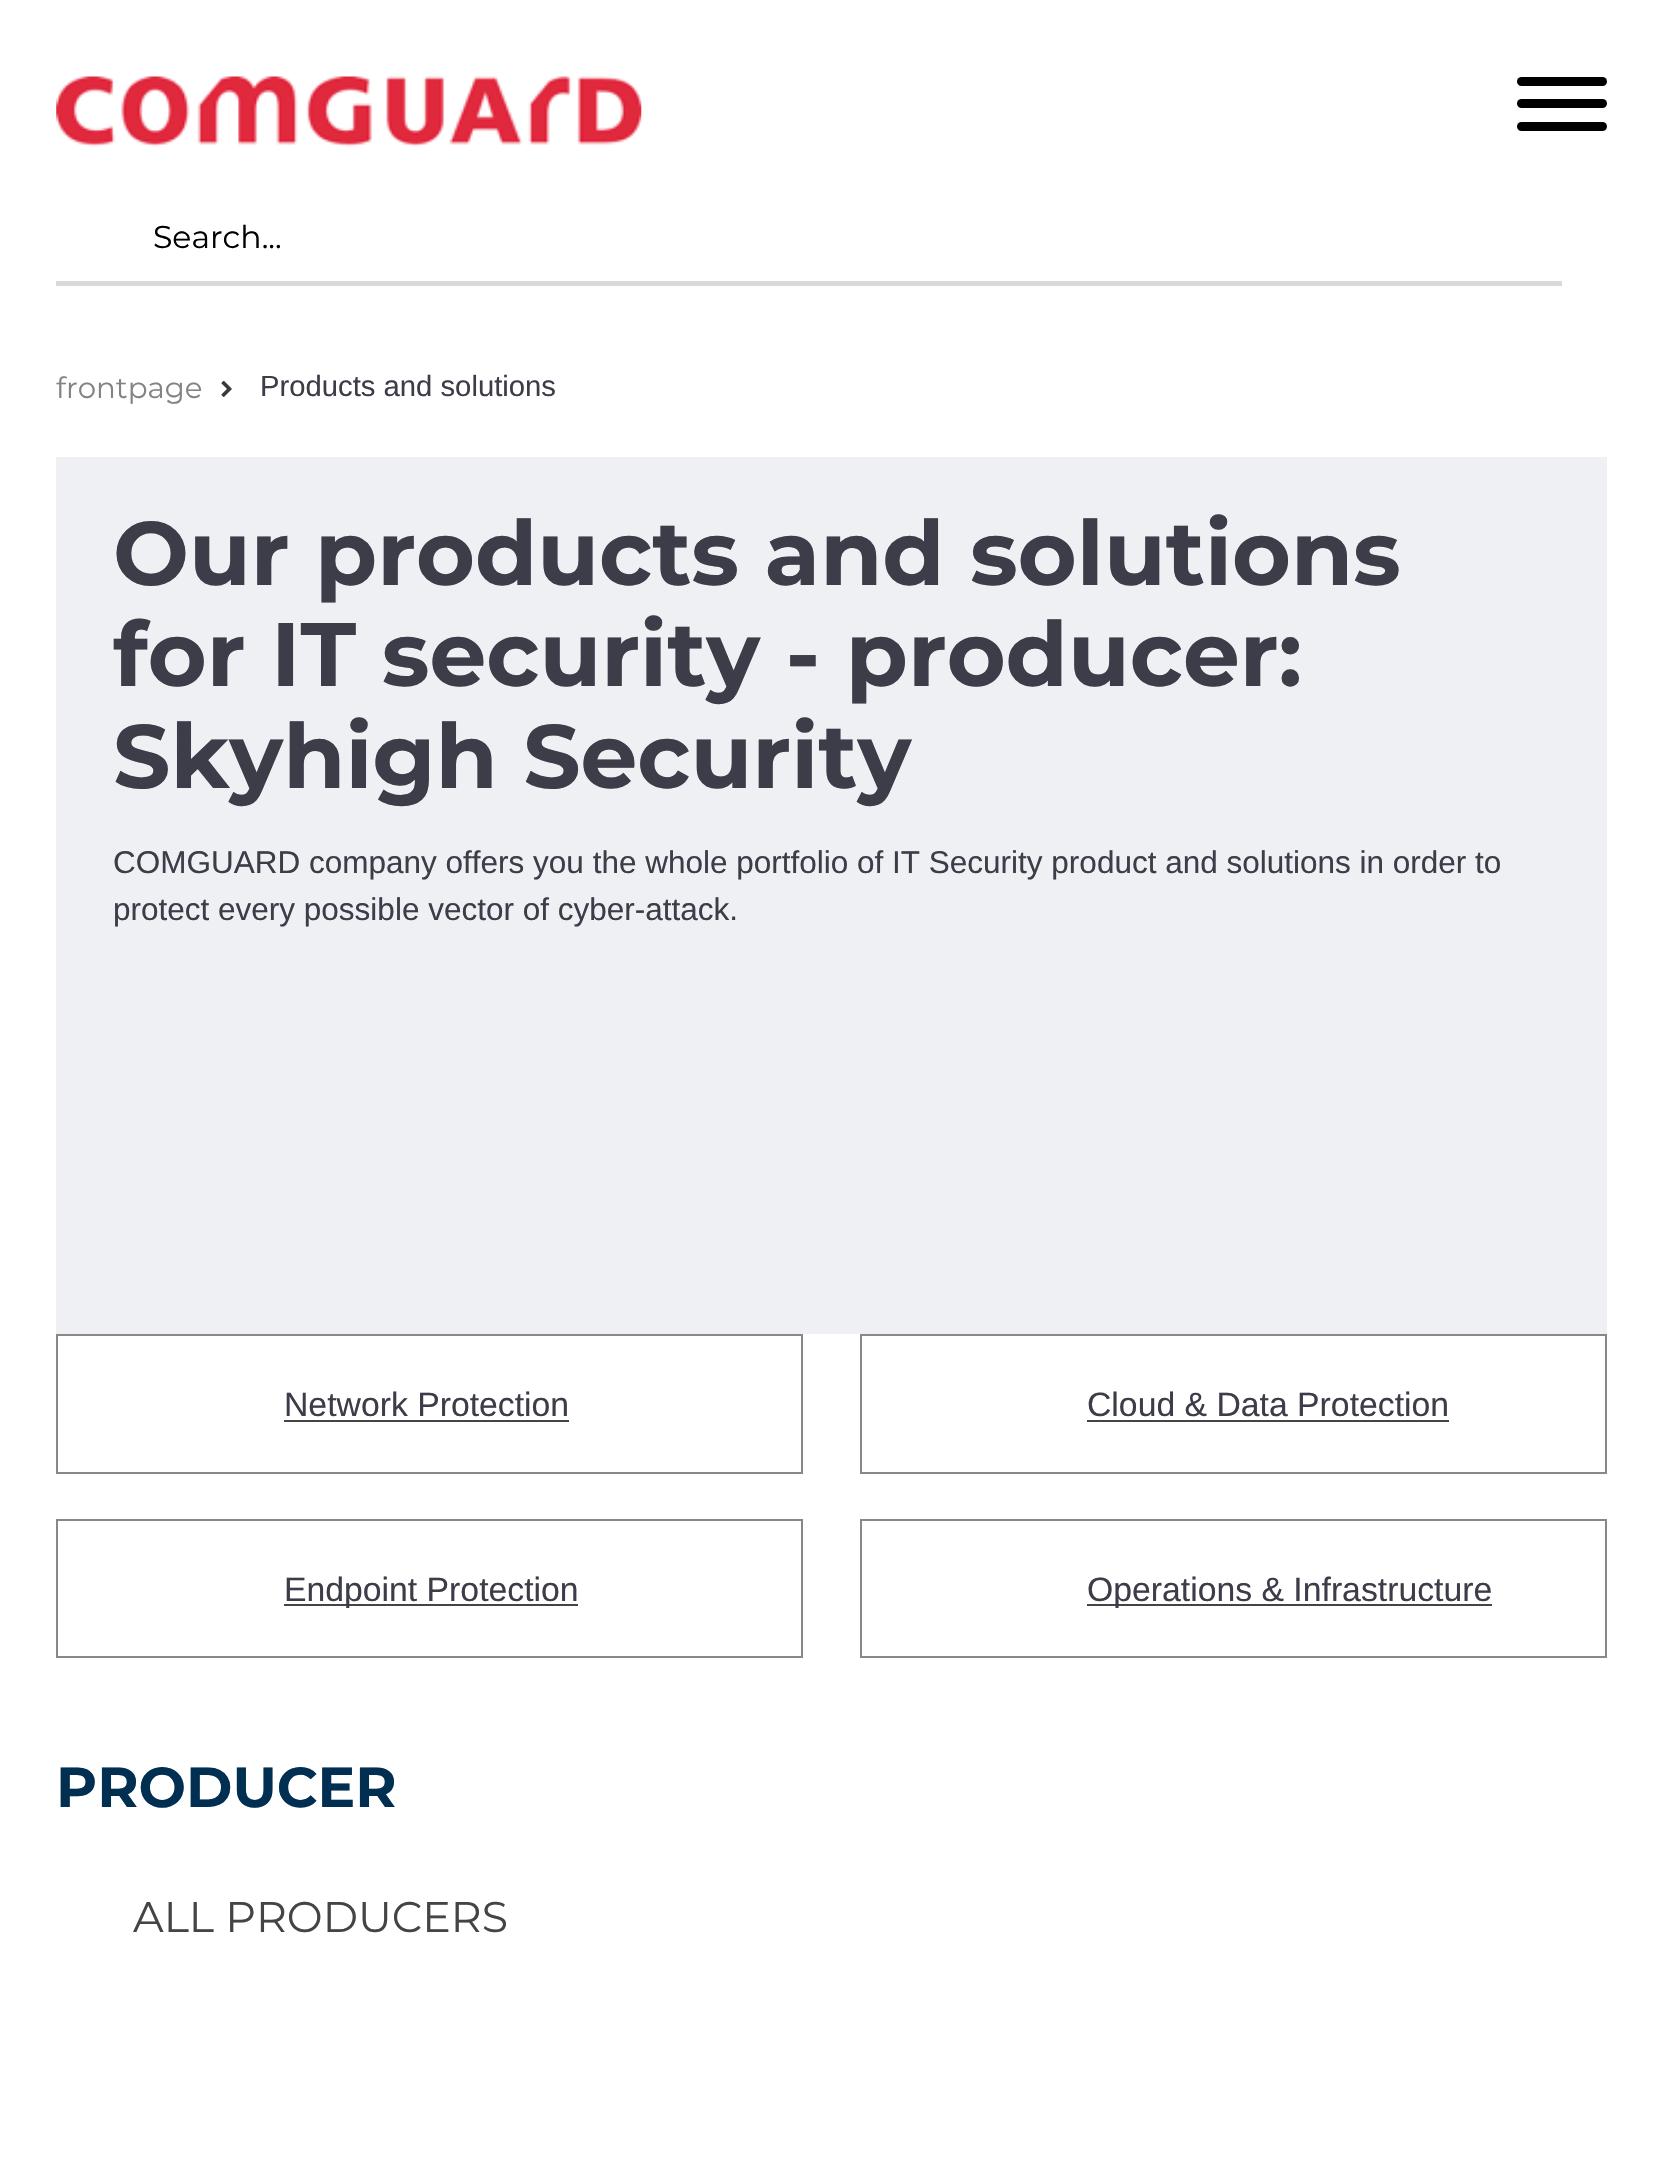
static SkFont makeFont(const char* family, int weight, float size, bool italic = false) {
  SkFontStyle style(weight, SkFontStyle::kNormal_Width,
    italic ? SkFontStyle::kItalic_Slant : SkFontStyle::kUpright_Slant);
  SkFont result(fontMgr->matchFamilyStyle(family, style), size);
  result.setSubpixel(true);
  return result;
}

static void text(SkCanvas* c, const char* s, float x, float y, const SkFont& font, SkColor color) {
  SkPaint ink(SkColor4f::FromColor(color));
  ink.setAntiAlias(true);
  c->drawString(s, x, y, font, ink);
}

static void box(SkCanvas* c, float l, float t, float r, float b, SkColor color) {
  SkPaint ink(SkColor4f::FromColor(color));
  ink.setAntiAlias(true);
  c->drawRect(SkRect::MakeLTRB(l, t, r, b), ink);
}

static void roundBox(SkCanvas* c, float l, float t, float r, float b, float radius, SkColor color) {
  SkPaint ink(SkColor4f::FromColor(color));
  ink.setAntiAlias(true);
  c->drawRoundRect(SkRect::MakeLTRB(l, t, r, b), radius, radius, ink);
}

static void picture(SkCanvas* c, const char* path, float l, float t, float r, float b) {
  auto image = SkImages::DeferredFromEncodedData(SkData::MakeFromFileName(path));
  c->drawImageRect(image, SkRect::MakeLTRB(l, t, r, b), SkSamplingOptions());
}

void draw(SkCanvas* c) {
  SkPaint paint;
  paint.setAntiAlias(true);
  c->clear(0xffffffff);
  picture(c, "img_01.png", 56, 76, 642, 147);
  roundBox(c, 1517, 122, 1607, 131, 4.5f, 0xff000000);
  roundBox(c, 1517, 77, 1607, 86, 4.5f, 0xff000000);
  roundBox(c, 1517, 99, 1607, 108, 4.5f, 0xff000000);
  box(c, 56, 281, 1562, 286, 0xffd9d9d9);
  SkFont face1 = makeFont("Montserrat", 400, 31.5f);
  text(c, "Search...", 153, 248, face1, 0xff000000);
  SkFont face2 = makeFont("Montserrat", 400, 29.25f);
  text(c, "frontpage", 56, 398, face2, 0xff838383);
  picture(c, "img_02.png", 221, 380, 232, 397);
  SkFont face3 = makeFont("Liberation Sans", 400, 29.25f);
  text(c, "Products and solutions", 260, 396, face3, 0xff3c3d48);
  box(c, 56, 457, 1607, 1334, 0xffeff0f4);
  SkFont face4 = makeFont("Montserrat", 700, 90);
  text(c, "Our products and solutions", 113, 585, face4, 0xff3c3d48);
  text(c, "for IT security - producer:", 113, 686, face4, 0xff3c3d48);
  text(c, "Skyhigh Security", 113, 788, face4, 0xff3c3d48);
  SkFont face5 = makeFont("Liberation Sans", 400, 31.5f);
  text(c, "COMGUARD company offers you the whole portfolio of IT Security product and solutions in order to", 113, 873, face5, 0xff3c3d48);
  text(c, "protect every possible vector of cyber-attack.", 113, 920, face5, 0xff3c3d48);
  paint.setStyle(SkPaint::kStroke_Style);
  paint.setStrokeWidth(2);
  paint.setColor(0xff878888);
  c->drawRect(SkRect::MakeLTRB(57, 1335, 802, 1473), paint);
  SkFont face6 = makeFont("Liberation Sans", 400, 33.75f);
  text(c, "Network Protection", 284, 1416, face6, 0xff3c3d48);
  box(c, 284, 1420, 569, 1422, 0xff444444);
  c->drawRect(SkRect::MakeLTRB(861, 1335, 1606, 1473), paint);
  text(c, "Cloud & Data Protection", 1087, 1416, face6, 0xff3c3d48);
  box(c, 1087, 1420, 1449, 1422, 0xff444444);
  c->drawRect(SkRect::MakeLTRB(57, 1520, 802, 1657), paint);
  box(c, 284, 1604, 578, 1606, 0xff444444);
  text(c, "Endpoint Protection", 284, 1601, face6, 0xff3c3d48);
  c->drawRect(SkRect::MakeLTRB(861, 1520, 1606, 1657), paint);
  box(c, 1087, 1604, 1492, 1606, 0xff444444);
  text(c, "Operations & Infrastructure", 1087, 1601, face6, 0xff3c3d48);
  SkFont face7 = makeFont("Montserrat", 700, 56.25f);
  text(c, "PRODUCER", 56, 1807, face7, 0xff002f51);
  SkFont face8 = makeFont("Montserrat", 400, 42.75f);
  text(c, "ALL PRODUCERS", 133, 1932, face8, 0xff444444);
}
